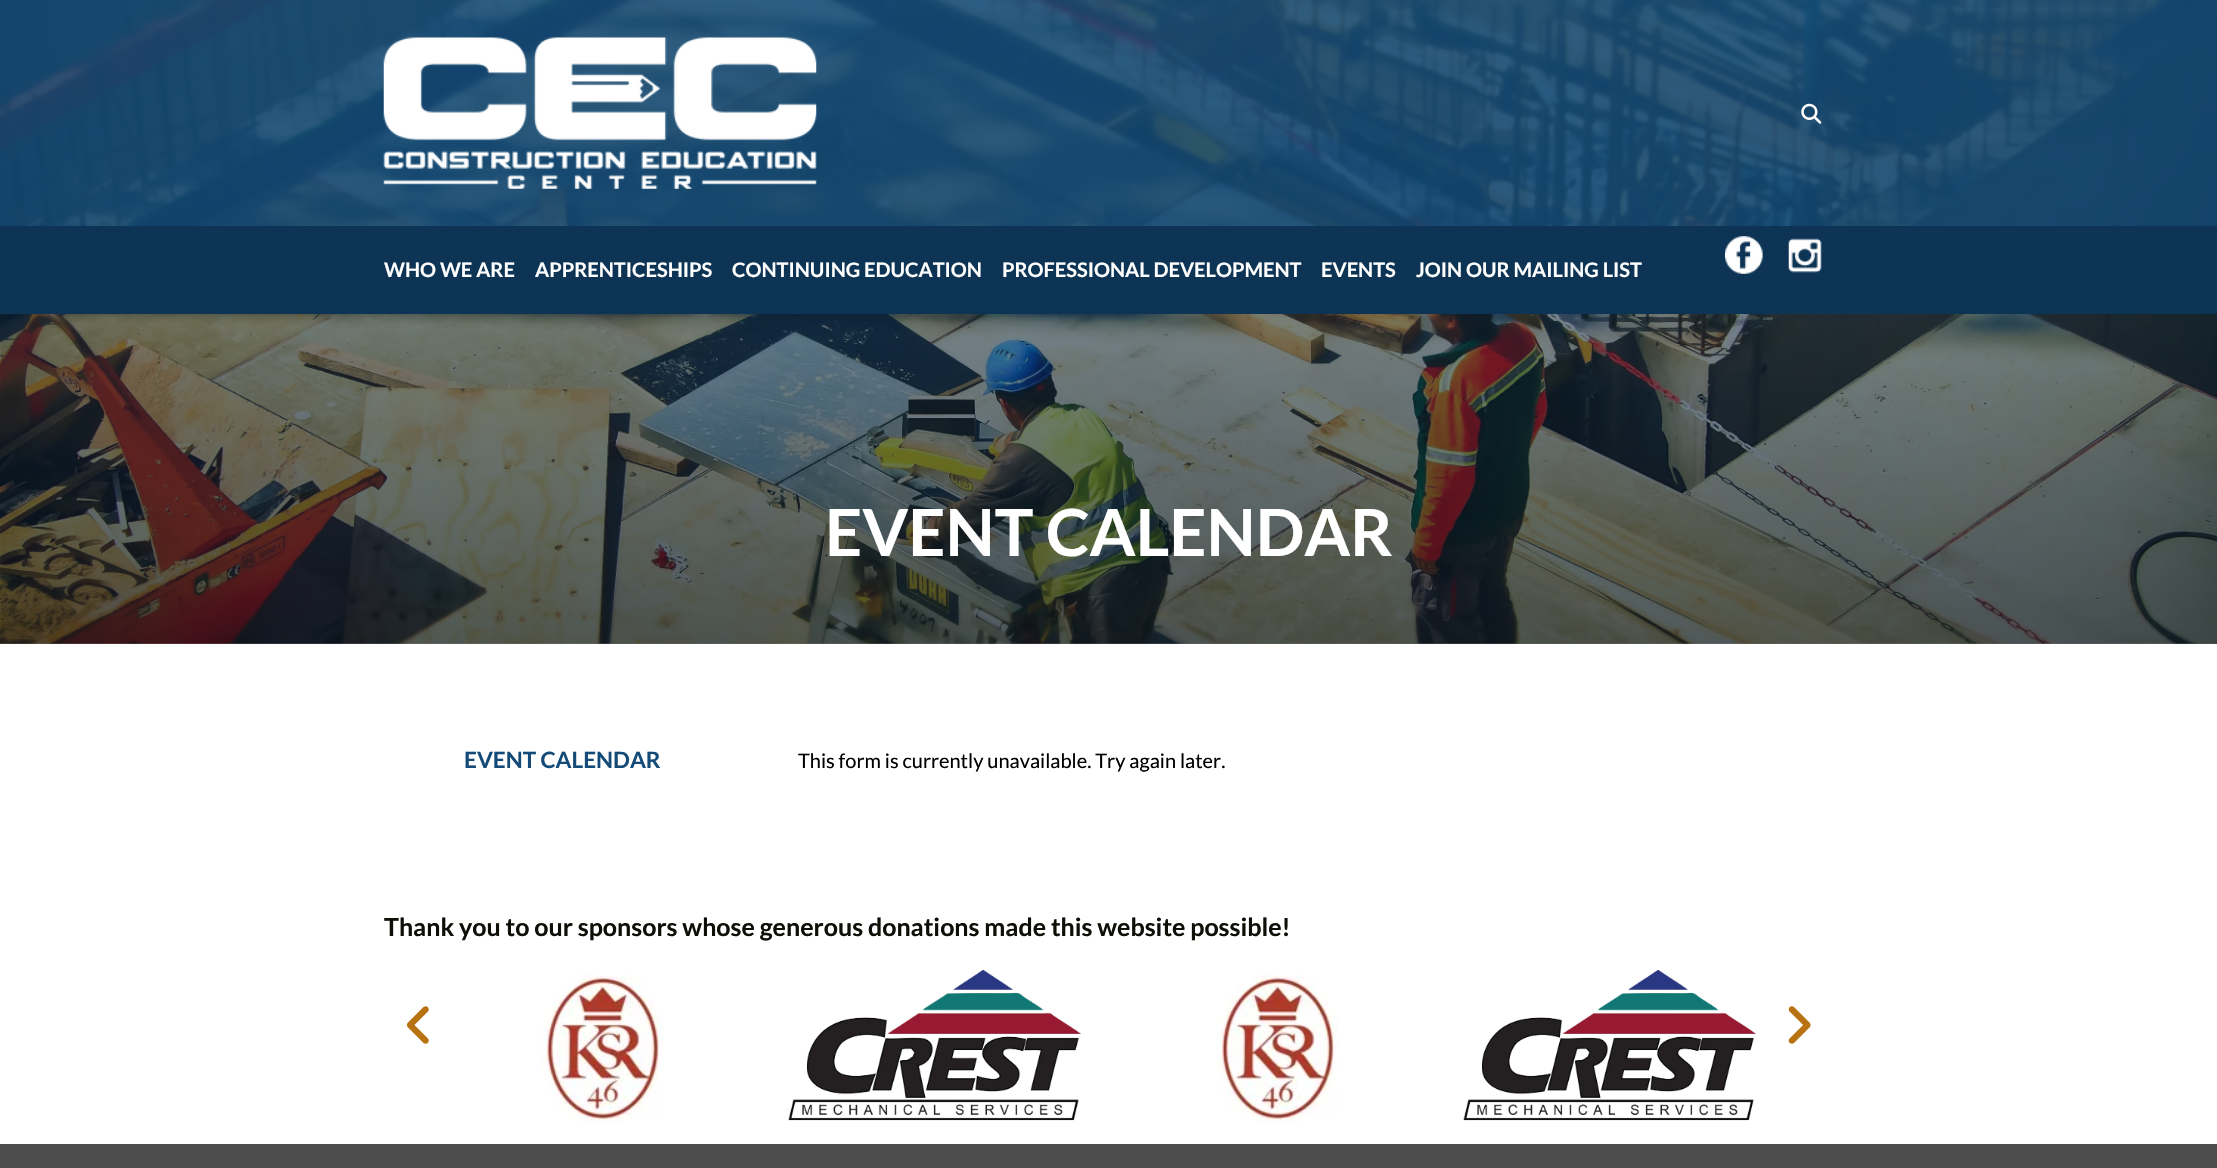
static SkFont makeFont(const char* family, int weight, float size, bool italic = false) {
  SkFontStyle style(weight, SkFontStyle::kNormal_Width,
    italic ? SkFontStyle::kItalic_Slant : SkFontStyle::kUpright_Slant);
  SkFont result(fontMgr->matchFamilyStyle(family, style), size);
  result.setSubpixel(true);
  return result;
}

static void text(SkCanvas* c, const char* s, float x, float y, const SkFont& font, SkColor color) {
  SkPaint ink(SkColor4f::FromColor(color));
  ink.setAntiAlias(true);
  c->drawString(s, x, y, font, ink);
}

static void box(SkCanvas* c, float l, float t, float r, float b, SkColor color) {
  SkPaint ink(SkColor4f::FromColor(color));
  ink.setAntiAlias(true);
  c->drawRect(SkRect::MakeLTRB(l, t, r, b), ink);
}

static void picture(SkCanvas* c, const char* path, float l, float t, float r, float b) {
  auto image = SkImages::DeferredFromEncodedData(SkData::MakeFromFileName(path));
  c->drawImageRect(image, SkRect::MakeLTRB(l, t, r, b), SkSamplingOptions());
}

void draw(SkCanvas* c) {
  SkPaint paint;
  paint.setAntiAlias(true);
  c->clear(0xffffffff);
  picture(c, "img_05.png", 0, 0, 2217, 644);
  {
    const SkColor colors[] = {0x00000000, 0x80000000};
    const float stops[] = {0, 1};
    const SkPoint ends[] = {{1109, 0}, {1109, 644}};
    paint.setShader(SkGradientShader::MakeLinear(ends, colors, stops, 2, SkTileMode::kClamp));
    paint.setAlpha(255);
  }
  c->drawRect(SkRect::MakeLTRB(0, 28, 2217, 644), paint);
  box(c, 0, 0, 2217, 226, 0xcc134a77);
  picture(c, "img_01.png", 383, 37, 817, 189);
  picture(c, "img_02.png", 1801, 103, 1822, 124);
  box(c, 0, 226, 2217, 314, 0xff0d3454);
  SkFont face1 = makeFont("Lato", 700, 20);
  text(c, "WHO WE ARE", 384, 277, face1, 0xffffffff);
  text(c, "APPRENTICESHIPS", 535, 277, face1, 0xffffffff);
  text(c, "CONTINUING EDUCATION", 732, 277, face1, 0xffffffff);
  text(c, "PROFESSIONAL DEVELOPMENT", 1002, 277, face1, 0xffffffff);
  text(c, "EVENTS", 1321, 277, face1, 0xffffffff);
  text(c, "JOIN OUR MAILING LIST", 1416, 277, face1, 0xffffffff);
  picture(c, "img_03.png", 1725, 236, 1763, 274);
  picture(c, "img_04.png", 1788, 238, 1822, 273);
  SkFont face2 = makeFont("Lato", 700, 65);
  text(c, "EVENT CALENDAR", 825, 556, face2, 0xffffffff);
  SkFont face3 = makeFont("Lato", 700, 22.5f);
  text(c, "EVENT CALENDAR", 464, 768, face3, 0xff134a77);
  SkFont face4 = makeFont("Lato", 400, 20);
  text(c, "This form is currently unavailable. Try again later.", 798, 768, face4, 0xff000000);
  SkFont face5 = makeFont("Lato", 700, 25);
  text(c, "Thank you to our sponsors whose generous donations made this website possible!", 384, 936, face5, 0xff0c1006);
  picture(c, "img_06.png", 542, 975, 663, 1123);
  picture(c, "img_07.png", 788, 970, 1081, 1121);
  picture(c, "img_08.png", 1217, 975, 1338, 1123);
  picture(c, "img_07.png", 1463, 970, 1756, 1121);
  picture(c, "img_09.png", 406, 1006, 429, 1044);
  picture(c, "img_10.png", 1788, 1006, 1811, 1044);
  box(c, 0, 1144, 2217, 1168, 0xff4d4d4d);
}
